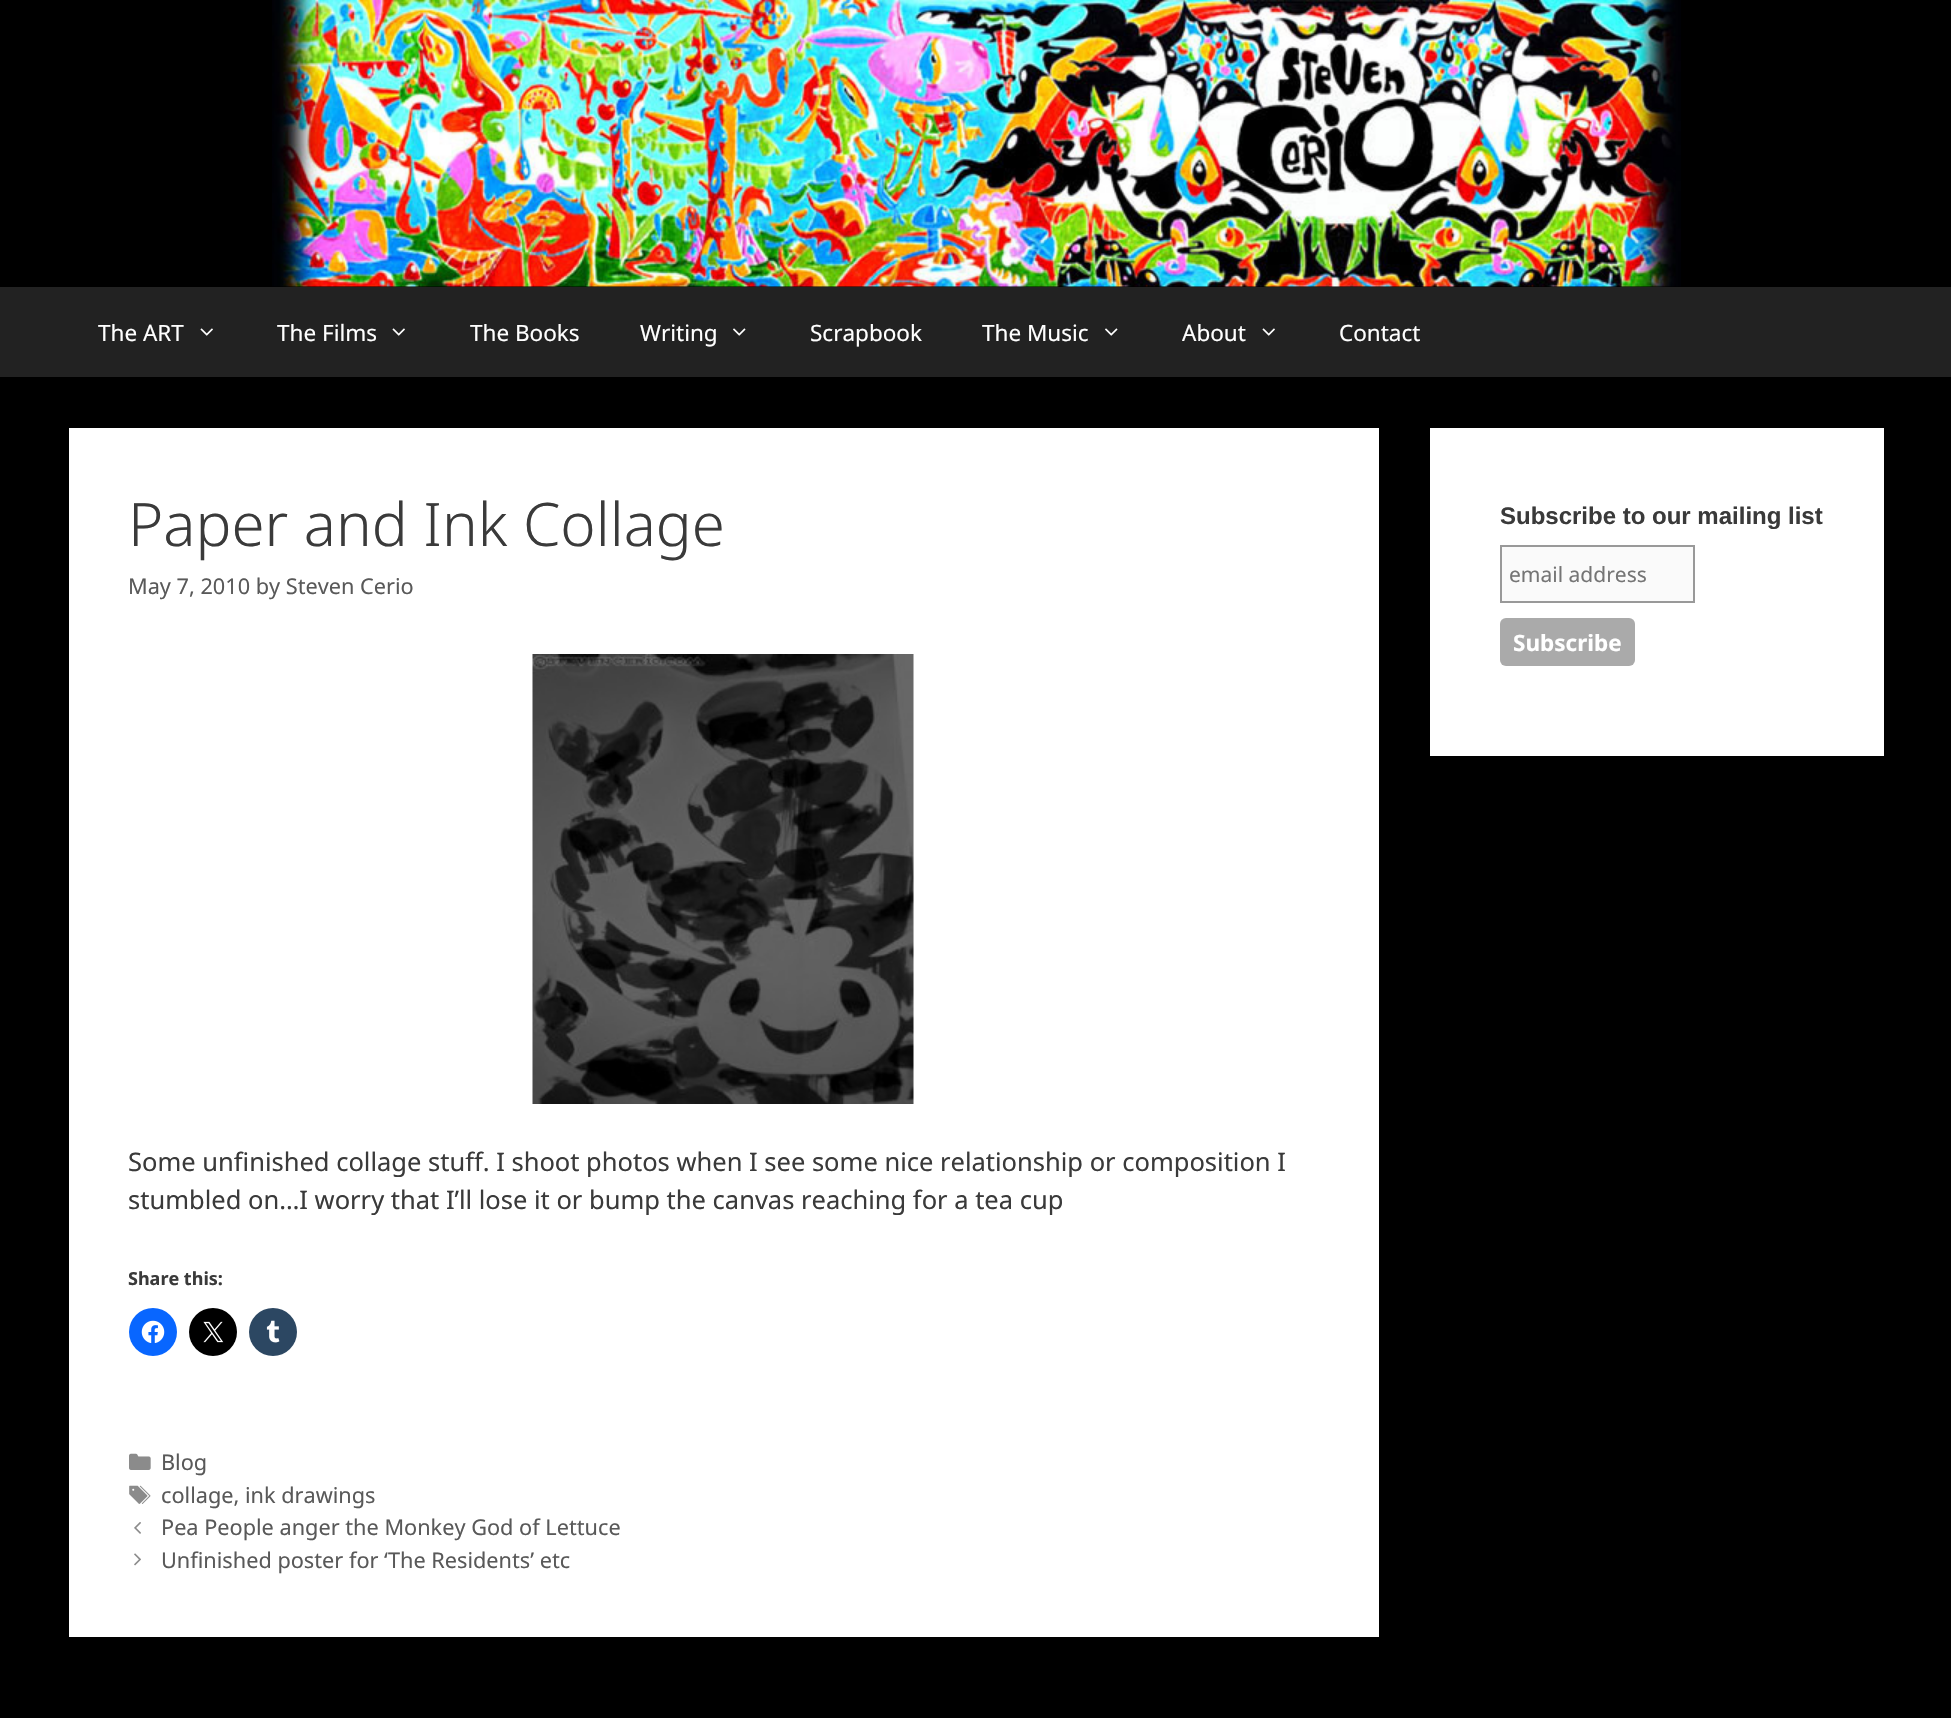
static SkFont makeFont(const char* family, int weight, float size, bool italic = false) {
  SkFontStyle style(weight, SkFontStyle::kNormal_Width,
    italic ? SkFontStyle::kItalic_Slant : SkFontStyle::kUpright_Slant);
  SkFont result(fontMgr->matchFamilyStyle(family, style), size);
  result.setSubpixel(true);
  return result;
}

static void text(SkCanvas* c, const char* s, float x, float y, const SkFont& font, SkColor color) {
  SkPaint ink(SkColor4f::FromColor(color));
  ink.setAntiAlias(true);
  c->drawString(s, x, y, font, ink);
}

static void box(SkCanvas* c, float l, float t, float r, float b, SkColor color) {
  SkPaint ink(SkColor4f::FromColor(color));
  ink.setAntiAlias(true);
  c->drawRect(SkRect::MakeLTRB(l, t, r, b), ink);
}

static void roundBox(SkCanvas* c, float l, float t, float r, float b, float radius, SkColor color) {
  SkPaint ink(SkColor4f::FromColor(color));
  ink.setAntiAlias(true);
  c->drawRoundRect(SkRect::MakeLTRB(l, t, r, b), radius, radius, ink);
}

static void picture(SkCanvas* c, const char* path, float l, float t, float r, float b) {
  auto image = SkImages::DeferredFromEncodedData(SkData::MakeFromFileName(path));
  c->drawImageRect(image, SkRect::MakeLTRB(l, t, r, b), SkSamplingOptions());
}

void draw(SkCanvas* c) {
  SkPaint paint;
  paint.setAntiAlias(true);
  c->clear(0xff000000);
  picture(c, "img_01.png", 272, 0, 1681, 287);
  box(c, 0, 287, 1951, 377, 0xff222222);
  SkFont face1 = makeFont("Noto Sans", 400, 22.5f);
  text(c, "The ART", 98, 341, face1, 0xffffffff);
  picture(c, "img_02.png", 200, 328, 213, 336);
  text(c, "The Films", 277, 341, face1, 0xffffffff);
  picture(c, "img_02.png", 392, 328, 405, 336);
  text(c, "The Books", 470, 341, face1, 0xffffffff);
  text(c, "Writing", 640, 341, face1, 0xffffffff);
  picture(c, "img_03.png", 733, 328, 746, 336);
  text(c, "Scrapbook", 810, 341, face1, 0xffffffff);
  text(c, "The Music", 982, 341, face1, 0xffffffff);
  picture(c, "img_03.png", 1105, 328, 1118, 336);
  text(c, "About", 1182, 341, face1, 0xffffffff);
  picture(c, "img_02.png", 1262, 328, 1275, 336);
  text(c, "Contact", 1339, 341, face1, 0xffffffff);
  box(c, 69, 428, 1379, 1637, 0xffffffff);
  SkFont face2 = makeFont("Noto Sans", 300, 60);
  text(c, "Paper and Ink Collage", 128, 546, face2, 0xff3a3a3a);
  SkFont face3 = makeFont("Noto Sans", 400, 21.7f);
  text(c, "May 7, 2010 by Steven Cerio", 128, 594, face3, 0xff595959);
  picture(c, "img_04.png", 532, 654, 914, 1104);
  SkFont face4 = makeFont("Noto Sans", 400, 25.5f);
  text(c, "Some unfinished collage stuff. I shoot photos when I see some nice relationship or composition I", 128, 1171, face4, 0xff3a3a3a);
  text(c, "stumbled on…I worry that I’ll lose it or bump the canvas reaching for a tea cup", 128, 1209, face4, 0xff3a3a3a);
  SkFont face5 = makeFont("Noto Sans", 700, 18);
  text(c, "Share this:", 128, 1285, face5, 0xff3a3a3a);
  paint.setColor(0xff0866ff);
  c->drawCircle(153, 1332, 24, paint);
  picture(c, "img_05.png", 141, 1320, 165, 1343);
  paint.setColor(0xff000000);
  c->drawCircle(213, 1332, 24, paint);
  picture(c, "img_06.png", 203, 1321, 224, 1343);
  paint.setColor(0xff2c4762);
  c->drawCircle(273, 1332, 24, paint);
  picture(c, "img_07.png", 266, 1320, 280, 1343);
  picture(c, "img_08.png", 129, 1453, 151, 1470);
  text(c, "Blog", 161, 1470, face3, 0xff595959);
  picture(c, "img_09.png", 129, 1485, 151, 1504);
  text(c, "collage, ink drawings", 161, 1503, face3, 0xff595959);
  picture(c, "img_10.png", 134, 1522, 141, 1534);
  text(c, "Pea People anger the Monkey God of Lettuce", 161, 1535, face3, 0xff595959);
  picture(c, "img_11.png", 134, 1553, 141, 1566);
  text(c, "Unfinished poster for ‘The Residents’ etc", 161, 1568, face3, 0xff595959);
  box(c, 1430, 428, 1884, 756, 0xffffffff);
  SkFont face6 = makeFont("Liberation Sans", 700, 24);
  text(c, "Subscribe to our mailing list", 1500, 524, face6, 0xff3a3a3a);
  paint.setColor(0xfffafafa);
  c->drawRect(SkRect::MakeLTRB(1501, 546, 1694, 602), paint);
  paint.setStyle(SkPaint::kStroke_Style);
  paint.setStrokeWidth(2);
  paint.setColor(0xff999999);
  c->drawRect(SkRect::MakeLTRB(1501, 546, 1694, 602), paint);
  SkFont face7 = makeFont("Noto Sans", 400, 21);
  text(c, "email address", 1509, 582, face7, 0xff757575);
  roundBox(c, 1500, 618, 1635, 666, 6, 0xffaaaaaa);
  SkFont face8 = makeFont("Noto Sans", 700, 22.5f);
  text(c, "Subscribe", 1513, 651, face8, 0xffffffff);
}
